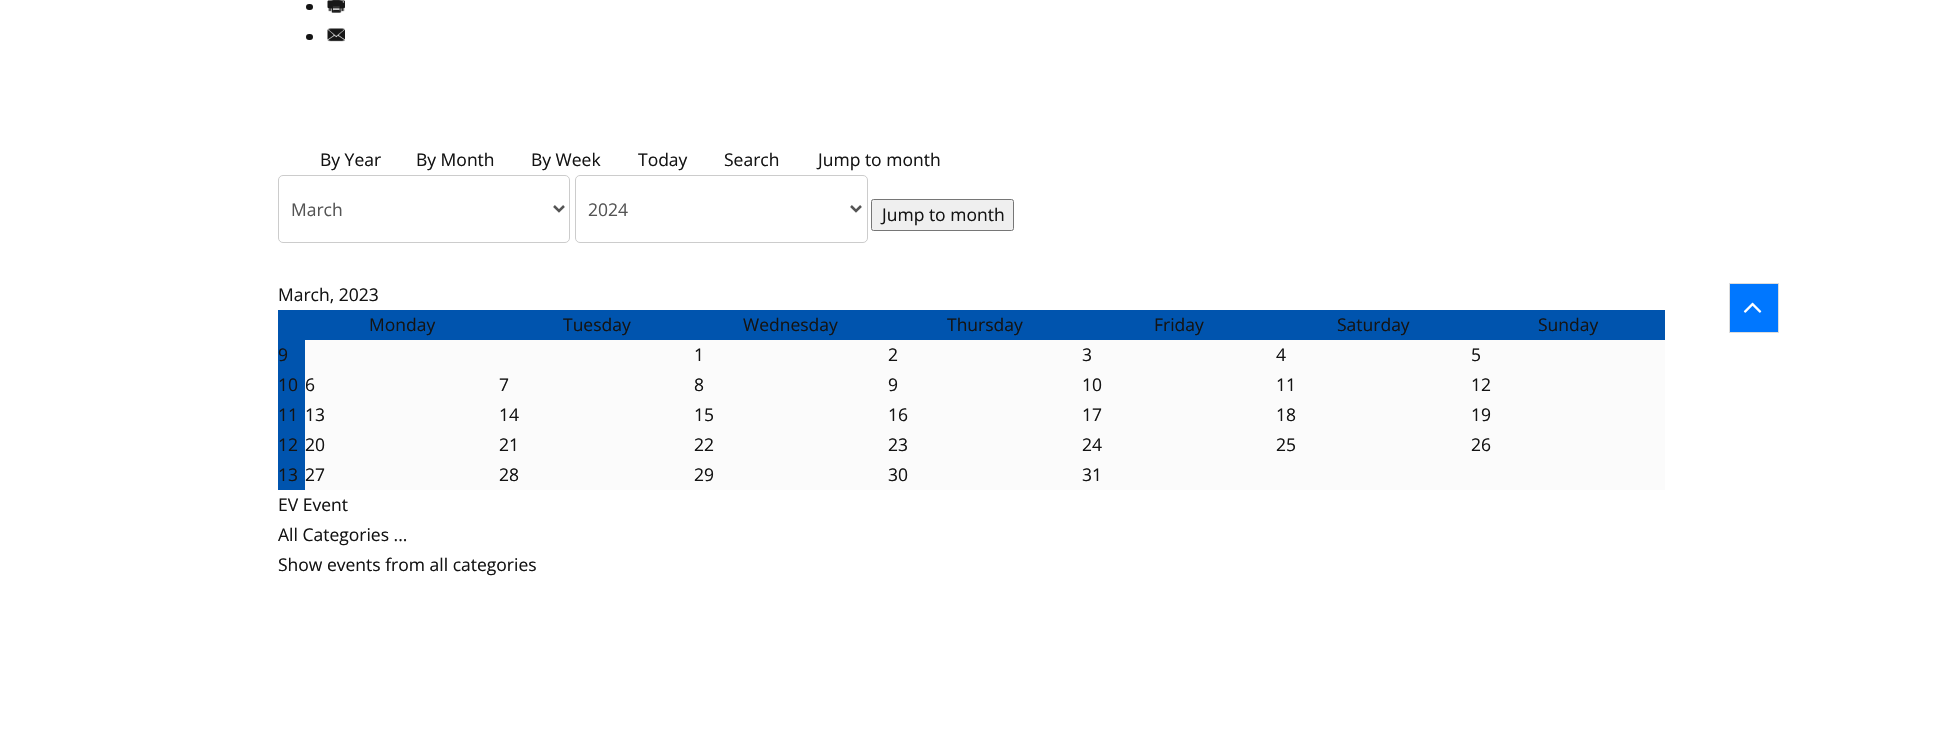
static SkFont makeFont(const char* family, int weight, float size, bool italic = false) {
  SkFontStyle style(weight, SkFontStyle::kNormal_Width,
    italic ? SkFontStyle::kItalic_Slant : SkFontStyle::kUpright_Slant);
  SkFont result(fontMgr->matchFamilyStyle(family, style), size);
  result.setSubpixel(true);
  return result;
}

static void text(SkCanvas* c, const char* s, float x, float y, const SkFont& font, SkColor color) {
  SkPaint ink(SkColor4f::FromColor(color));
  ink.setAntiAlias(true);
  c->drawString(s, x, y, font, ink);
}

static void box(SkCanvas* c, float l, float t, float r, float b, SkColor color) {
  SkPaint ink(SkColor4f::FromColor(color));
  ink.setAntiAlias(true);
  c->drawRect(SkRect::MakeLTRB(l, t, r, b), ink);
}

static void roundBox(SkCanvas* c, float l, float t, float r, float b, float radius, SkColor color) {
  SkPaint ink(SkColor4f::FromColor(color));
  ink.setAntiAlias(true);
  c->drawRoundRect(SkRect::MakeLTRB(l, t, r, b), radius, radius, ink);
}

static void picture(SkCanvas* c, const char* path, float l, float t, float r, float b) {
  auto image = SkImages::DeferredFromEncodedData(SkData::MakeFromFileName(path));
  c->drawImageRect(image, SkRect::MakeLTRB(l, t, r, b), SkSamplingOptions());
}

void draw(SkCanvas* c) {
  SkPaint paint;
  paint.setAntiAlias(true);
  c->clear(0xffffffff);
  roundBox(c, 306, 4, 313, 10, 3, 0xff141414);
  picture(c, "img_01.png", 328, 0, 345, 13);
  picture(c, "img_02.png", 327, 0, 345, 13);
  roundBox(c, 306, 34, 313, 40, 3, 0xff141414);
  picture(c, "img_03.png", 328, 28, 345, 42);
  picture(c, "img_04.png", 327, 29, 345, 41);
  SkFont face1 = makeFont("Open Sans", 400, 17.5f);
  text(c, "By Year", 320, 166, face1, 0xff141414);
  text(c, "By Month", 416, 166, face1, 0xff141414);
  text(c, "By Week", 531, 166, face1, 0xff141414);
  text(c, "Today", 638, 166, face1, 0xff141414);
  text(c, "Search", 724, 166, face1, 0xff141414);
  text(c, "Jump to month", 818, 166, face1, 0xff141414);
  paint.setStyle(SkPaint::kStroke_Style);
  paint.setStrokeWidth(1);
  paint.setColor(0xffcccccc);
  c->drawRoundRect(SkRect::MakeLTRB(278.5f, 175.5f, 569.5f, 242.5f), 4.5f, 4.5f, paint);
  paint.setStrokeWidth(2.5f);
  paint.setColor(0xff555555);
  c->drawPath(SkPathBuilder().moveTo(554, 206).lineTo(559, 211).lineTo(564, 206).detach(), paint);
  text(c, "March", 291, 216, face1, 0xff555555);
  paint.setStrokeWidth(1);
  paint.setColor(0xffcccccc);
  c->drawRoundRect(SkRect::MakeLTRB(575.5f, 175.5f, 867.5f, 242.5f), 4.5f, 4.5f, paint);
  paint.setStrokeWidth(2.5f);
  paint.setColor(0xff555555);
  c->drawPath(SkPathBuilder().moveTo(851, 206).lineTo(856, 211).lineTo(861, 206).detach(), paint);
  text(c, "2024", 588, 216, face1, 0xff555555);
  paint.setStyle(SkPaint::kFill_Style);
  paint.setColor(0xffefefef);
  c->drawRoundRect(SkRect::MakeLTRB(871.5f, 199.5f, 1013.5f, 230.5f), 2, 2, paint);
  paint.setStyle(SkPaint::kStroke_Style);
  paint.setStrokeWidth(1);
  paint.setColor(0xff767676);
  c->drawRoundRect(SkRect::MakeLTRB(871.5f, 199.5f, 1013.5f, 230.5f), 2, 2, paint);
  text(c, "Jump to month", 882, 221, face1, 0xff141414);
  text(c, "March, 2023", 278, 301, face1, 0xff141414);
  box(c, 278, 310, 1665, 340, 0xff0054ae);
  text(c, "Monday", 369, 331, face1, 0xff141414);
  text(c, "Tuesday", 563, 331, face1, 0xff141414);
  text(c, "Wednesday", 743, 331, face1, 0xff141414);
  text(c, "Thursday", 947, 331, face1, 0xff141414);
  text(c, "Friday", 1154, 331, face1, 0xff141414);
  text(c, "Saturday", 1337, 331, face1, 0xff141414);
  text(c, "Sunday", 1538, 331, face1, 0xff141414);
  box(c, 305, 340, 1665, 490, 0xfffbfbfb);
  box(c, 278, 340, 305, 490, 0xff0054ae);
  text(c, "9", 278, 361, face1, 0xff141414);
  text(c, "1", 694, 361, face1, 0xff141414);
  text(c, "2", 888, 361, face1, 0xff141414);
  text(c, "3", 1082, 361, face1, 0xff141414);
  text(c, "4", 1276, 361, face1, 0xff141414);
  text(c, "5", 1471, 361, face1, 0xff141414);
  text(c, "10", 278, 391, face1, 0xff141414);
  text(c, "6", 305, 391, face1, 0xff141414);
  text(c, "7", 499, 391, face1, 0xff141414);
  text(c, "8", 694, 391, face1, 0xff141414);
  text(c, "9", 888, 391, face1, 0xff141414);
  text(c, "10", 1082, 391, face1, 0xff141414);
  text(c, "11", 1276, 391, face1, 0xff141414);
  text(c, "12", 1471, 391, face1, 0xff141414);
  text(c, "11", 278, 421, face1, 0xff141414);
  text(c, "13", 305, 421, face1, 0xff141414);
  text(c, "14", 499, 421, face1, 0xff141414);
  text(c, "15", 694, 421, face1, 0xff141414);
  text(c, "16", 888, 421, face1, 0xff141414);
  text(c, "17", 1082, 421, face1, 0xff141414);
  text(c, "18", 1276, 421, face1, 0xff141414);
  text(c, "19", 1471, 421, face1, 0xff141414);
  text(c, "12", 278, 451, face1, 0xff141414);
  text(c, "20", 305, 451, face1, 0xff141414);
  text(c, "21", 499, 451, face1, 0xff141414);
  text(c, "22", 694, 451, face1, 0xff141414);
  text(c, "23", 888, 451, face1, 0xff141414);
  text(c, "24", 1082, 451, face1, 0xff141414);
  text(c, "25", 1276, 451, face1, 0xff141414);
  text(c, "26", 1471, 451, face1, 0xff141414);
  text(c, "13", 278, 481, face1, 0xff141414);
  text(c, "27", 305, 481, face1, 0xff141414);
  text(c, "28", 499, 481, face1, 0xff141414);
  text(c, "29", 694, 481, face1, 0xff141414);
  text(c, "30", 888, 481, face1, 0xff141414);
  text(c, "31", 1082, 481, face1, 0xff141414);
  text(c, "EV Event", 278, 511, face1, 0xff141414);
  text(c, "All Categories ...", 278, 541, face1, 0xff141414);
  text(c, "Show events from all categories", 278, 571, face1, 0xff141414);
  paint.setStyle(SkPaint::kFill_Style);
  paint.setColor(0xff0077ff);
  c->drawRect(SkRect::MakeLTRB(1729.5f, 283.5f, 1778.5f, 332.5f), paint);
  paint.setStyle(SkPaint::kStroke_Style);
  paint.setColor(0xffdddddd);
  c->drawRect(SkRect::MakeLTRB(1729.5f, 283.5f, 1778.5f, 332.5f), paint);
  picture(c, "img_05.png", 1743, 302, 1762, 313);
}
